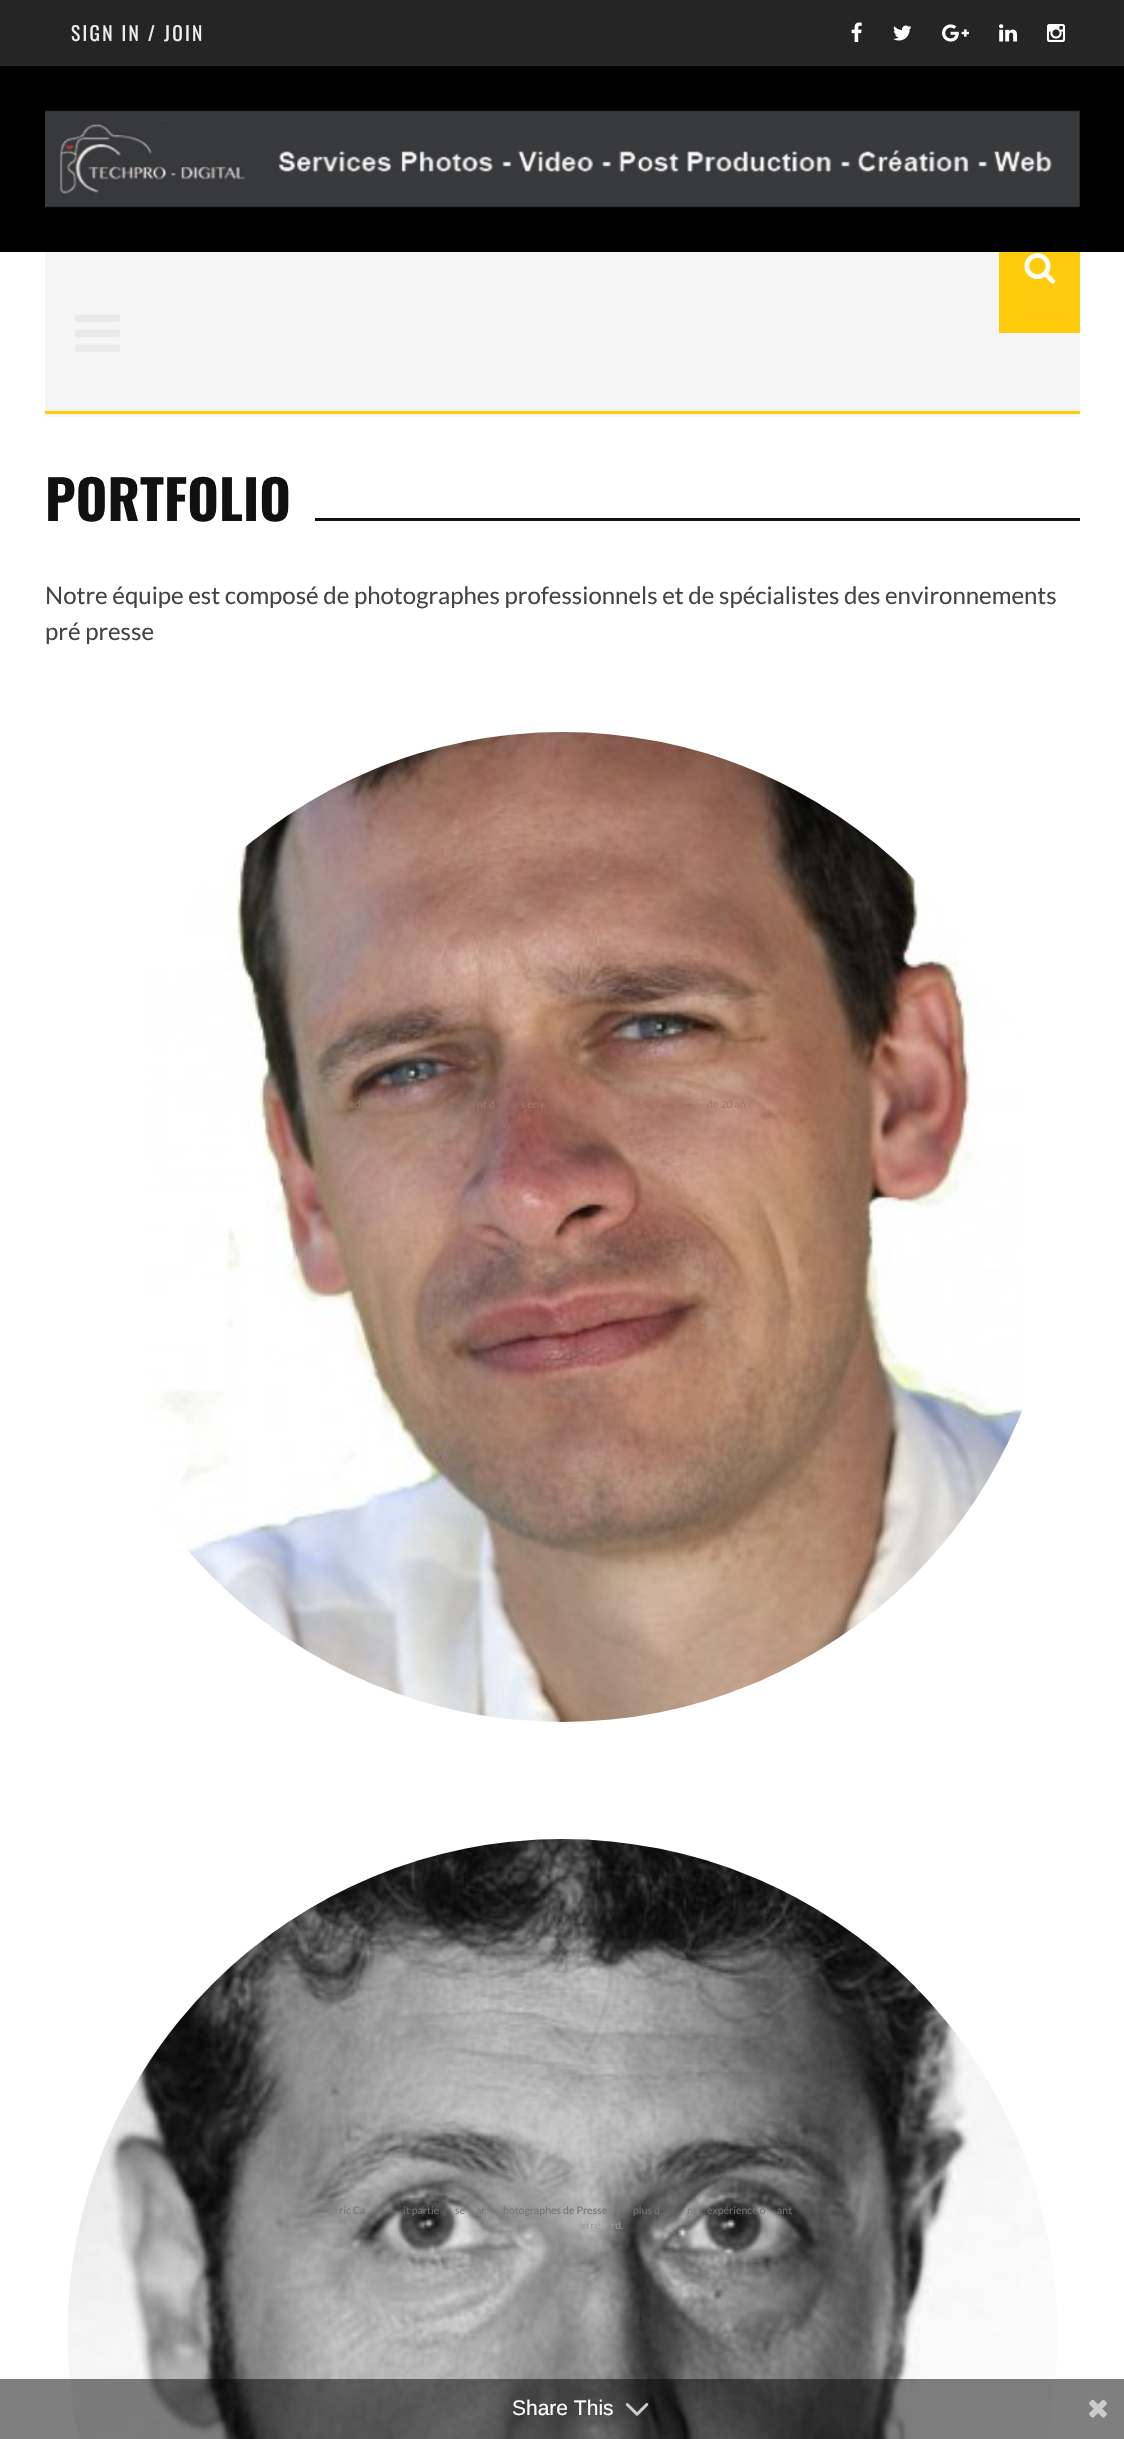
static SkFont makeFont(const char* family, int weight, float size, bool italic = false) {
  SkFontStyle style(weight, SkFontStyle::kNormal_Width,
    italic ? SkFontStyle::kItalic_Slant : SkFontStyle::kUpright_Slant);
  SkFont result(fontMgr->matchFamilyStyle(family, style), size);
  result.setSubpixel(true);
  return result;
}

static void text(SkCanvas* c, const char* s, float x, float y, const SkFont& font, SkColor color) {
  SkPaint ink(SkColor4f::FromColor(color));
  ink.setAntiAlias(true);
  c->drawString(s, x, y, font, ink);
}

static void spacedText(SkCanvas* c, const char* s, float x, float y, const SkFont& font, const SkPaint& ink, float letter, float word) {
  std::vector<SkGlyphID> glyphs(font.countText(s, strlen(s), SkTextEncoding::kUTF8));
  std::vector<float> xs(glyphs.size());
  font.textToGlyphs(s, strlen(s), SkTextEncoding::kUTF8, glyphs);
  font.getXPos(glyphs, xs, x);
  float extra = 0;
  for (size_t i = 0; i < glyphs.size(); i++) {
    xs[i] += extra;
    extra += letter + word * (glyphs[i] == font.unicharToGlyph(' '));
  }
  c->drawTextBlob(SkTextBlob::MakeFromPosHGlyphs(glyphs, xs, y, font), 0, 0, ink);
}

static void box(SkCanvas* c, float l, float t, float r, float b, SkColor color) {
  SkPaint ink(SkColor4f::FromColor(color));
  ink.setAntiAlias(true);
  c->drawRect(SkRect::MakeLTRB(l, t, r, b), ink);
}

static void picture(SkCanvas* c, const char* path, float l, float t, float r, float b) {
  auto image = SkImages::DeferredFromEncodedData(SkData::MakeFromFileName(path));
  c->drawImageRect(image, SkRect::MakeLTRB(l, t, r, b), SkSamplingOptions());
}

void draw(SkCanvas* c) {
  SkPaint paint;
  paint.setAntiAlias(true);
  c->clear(0xffffffff);
  box(c, 0, 66, 1124, 252, 0xff000000);
  box(c, 0, 0, 1124, 66, 0xff252525);
  SkFont face1 = makeFont("Oswald", 400, 19.5f);
  paint.setColor(0xffeeeeee);
  spacedText(c, "SIGN IN / JOIN", 71, 41, face1, paint, 2.25f, 0);
  picture(c, "img_01.png", 851, 22, 862, 42);
  picture(c, "img_02.png", 893, 25, 912, 41);
  picture(c, "img_03.png", 942, 24, 969, 42);
  picture(c, "img_04.png", 999, 24, 1017, 42);
  picture(c, "img_05.png", 1047, 24, 1065, 42);
  picture(c, "img_06.png", 45, 110, 1080, 208);
  box(c, 45, 252, 1080, 411, 0xfff5f5f5);
  box(c, 45, 411, 1080, 414, 0xffffcc0d);
  picture(c, "img_07.png", 75, 314, 120, 352);
  box(c, 999, 252, 1080, 333, 0xffffcc0d);
  picture(c, "img_08.png", 1024, 253, 1056, 284);
  box(c, 45, 414, 1080, 417, 0xfff8f8f8);
  SkFont face2 = makeFont("Oswald", 700, 54);
  text(c, "PORTFOLIO", 45, 521, face2, 0xff111111);
  box(c, 315, 518, 1080, 521, 0xff111111);
  SkFont face3 = makeFont("Lato", 400, 24);
  text(c, "Notre équipe est composé de photographes professionnels et de spécialistes des environnements", 45, 604, face3, 0xff444444);
  text(c, "pré presse", 45, 640, face3, 0xff444444);
  picture(c, "img_09.png", 149, 732, 1023, 1722);
  SkFont face4 = makeFont("Lato", 400, 10.5f);
  text(c, "ed", 349, 1108, face4, 0xffa37769);
  text(c, "nt d", 477, 1108, face4, 0xffa37769);
  text(c, "s env", 521, 1108, face4, 0xffa37769);
  text(c, "de 20 an", 707, 1108, face4, 0xffa37769);
  picture(c, "img_10.png", 68, 1839, 1057, 2439);
  text(c, "ric Ca", 339, 2214, face4, 0xff737373);
  text(c, "it partie", 403, 2214, face4, 0xff737373);
  text(c, "se", 455, 2214, face4, 0xff737373);
  text(c, "ar", 476, 2214, face4, 0xff737373);
  text(c, "hotographes de Presse", 503, 2214, face4, 0xff737373);
  text(c, "plus d", 633, 2214, face4, 0xff737373);
  text(c, "ns", 687, 2214, face4, 0xff737373);
  text(c, "expérience o", 707, 2214, face4, 0xff737373);
  text(c, "ant", 777, 2214, face4, 0xff737373);
  text(c, "in re", 580, 2229, face4, 0xff999999);
  text(c, "rd.", 611, 2229, face4, 0xff999999);
  box(c, 0, 2379, 1124, 2439, 0x80000000);
  SkFont face5 = makeFont("Liberation Sans", 400, 21);
  text(c, "Share This", 512, 2415, face5, 0xffffffff);
  picture(c, "img_11.png", 625, 2403, 649, 2416);
  picture(c, "img_12.png", 1089, 2399, 1107, 2418);
}
